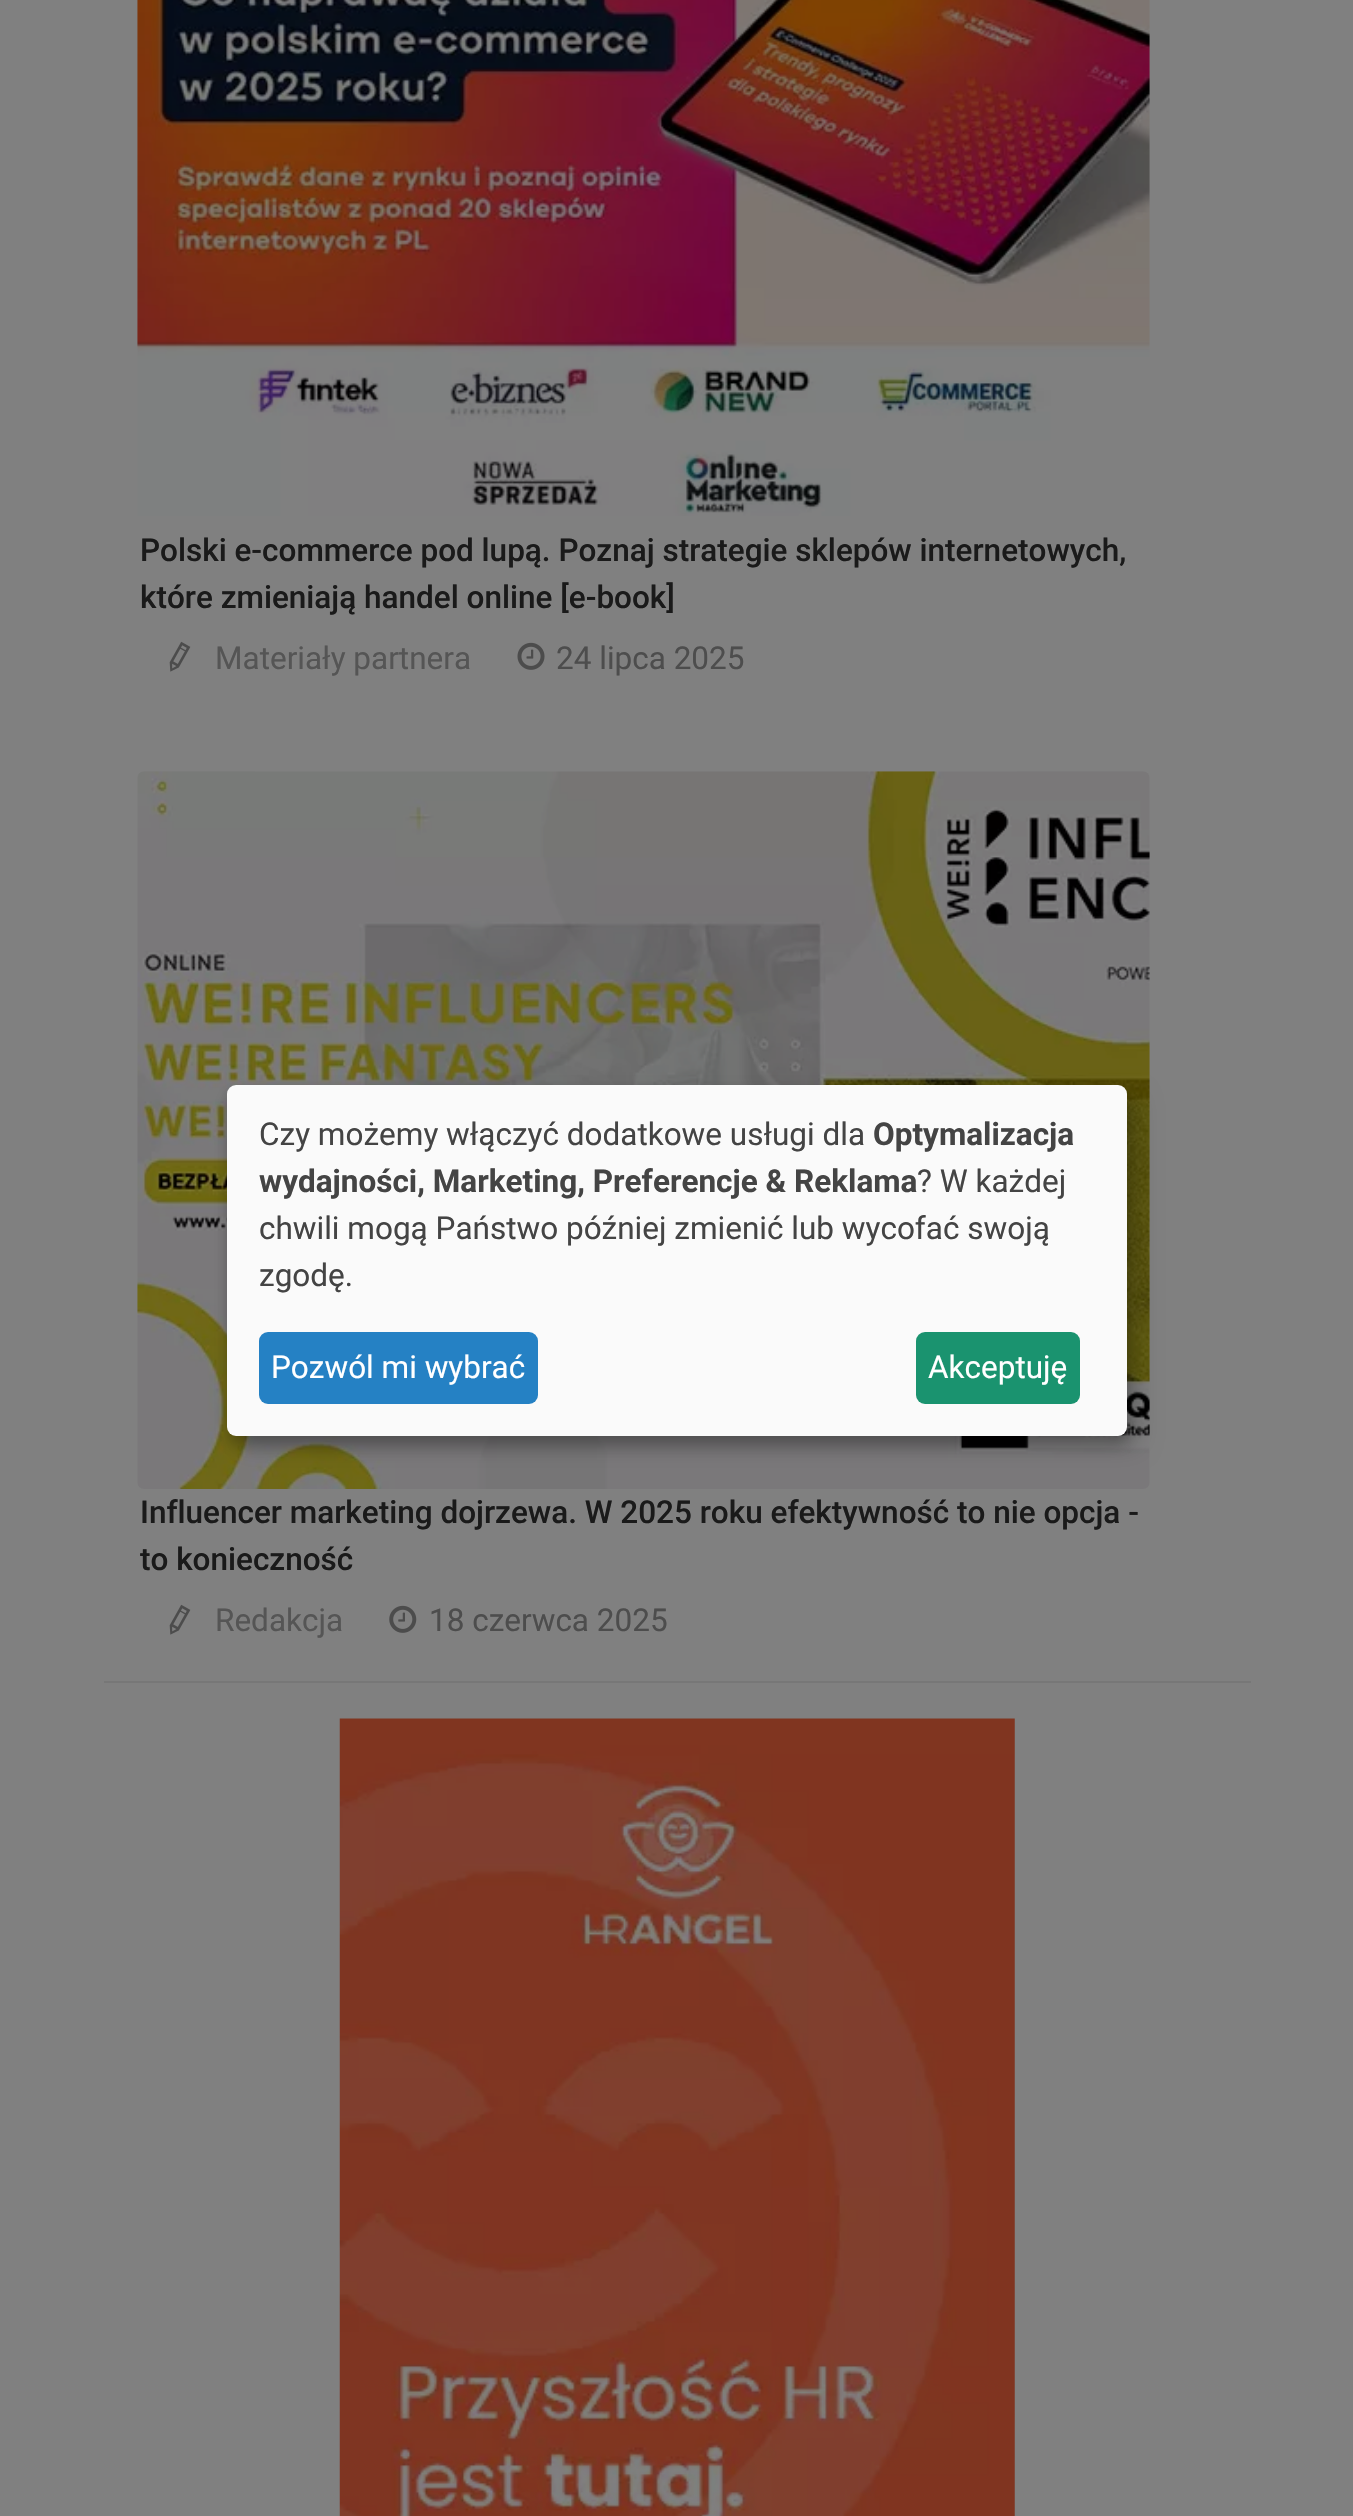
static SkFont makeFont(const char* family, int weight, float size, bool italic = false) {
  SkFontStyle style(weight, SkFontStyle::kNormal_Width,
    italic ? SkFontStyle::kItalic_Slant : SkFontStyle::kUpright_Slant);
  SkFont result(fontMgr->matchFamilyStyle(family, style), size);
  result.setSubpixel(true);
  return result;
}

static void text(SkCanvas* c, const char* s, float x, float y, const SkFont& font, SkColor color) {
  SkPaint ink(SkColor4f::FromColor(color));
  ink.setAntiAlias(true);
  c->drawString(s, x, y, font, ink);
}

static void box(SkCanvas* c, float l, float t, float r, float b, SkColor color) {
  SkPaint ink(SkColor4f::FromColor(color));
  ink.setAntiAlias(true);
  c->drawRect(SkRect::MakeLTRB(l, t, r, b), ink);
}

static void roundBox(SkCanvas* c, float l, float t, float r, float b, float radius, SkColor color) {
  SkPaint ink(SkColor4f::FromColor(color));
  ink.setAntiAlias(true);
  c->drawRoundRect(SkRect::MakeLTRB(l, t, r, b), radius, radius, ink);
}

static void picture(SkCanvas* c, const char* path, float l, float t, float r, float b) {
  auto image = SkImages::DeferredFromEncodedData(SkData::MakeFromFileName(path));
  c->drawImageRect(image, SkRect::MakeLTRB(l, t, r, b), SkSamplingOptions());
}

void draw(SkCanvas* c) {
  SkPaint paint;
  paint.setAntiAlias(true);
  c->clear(0xff808080);
  picture(c, "img_01.png", 137, 0, 1150, 516);
  SkFont face1 = makeFont("Roboto", 500, 31.5f);
  text(c, "Polski e-commerce pod lupą. Poznaj strategie sklepów internetowych,", 140, 561, face1, 0xff1a1a1a);
  text(c, "które zmieniają handel online [e-book]", 140, 608, face1, 0xff1a1a1a);
  picture(c, "img_02.png", 169, 641, 191, 672);
  SkFont face2 = makeFont("Roboto", 400, 31.5f);
  text(c, "Materiały partnera", 215, 669, face2, 0xff555555);
  picture(c, "img_03.png", 517, 642, 545, 670);
  text(c, "24 lipca 2025", 556, 669, face2, 0xff4d4d4d);
  picture(c, "img_04.png", 137, 771, 1150, 1489);
  text(c, "Influencer marketing dojrzewa. W 2025 roku efektywność to nie opcja -", 140, 1523, face1, 0xff1a1a1a);
  text(c, "to konieczność", 140, 1570, face1, 0xff1a1a1a);
  picture(c, "img_02.png", 169, 1604, 191, 1635);
  text(c, "Redakcja", 215, 1631, face2, 0xff555555);
  picture(c, "img_05.png", 389, 1605, 417, 1633);
  text(c, "18 czerwca 2025", 429, 1631, face2, 0xff4d4d4d);
  box(c, 104, 1681, 1251, 1683, 0xff777777);
  picture(c, "img_06.png", 339, 1718, 1015, 2516);
  paint.setColor(0x30000000);
  paint.setMaskFilter(SkMaskFilter::MakeBlur(kNormal_SkBlurStyle, 11));
  c->drawRoundRect(SkRect::MakeLTRB(239, 1096, 1139, 1447), 9, 9, paint);
  paint.setMaskFilter(nullptr);
  paint.setColor(0x33000000);
  paint.setMaskFilter(SkMaskFilter::MakeBlur(kNormal_SkBlurStyle, 7));
  c->drawRoundRect(SkRect::MakeLTRB(227, 1094, 1127, 1445), 9, 9, paint);
  paint.setMaskFilter(nullptr);
  roundBox(c, 227, 1085, 1127, 1436, 9, 0xfffafafa);
  text(c, "Czy możemy włączyć dodatkowe usługi dla", 259, 1145, face2, 0xff444444);
  SkFont face3 = makeFont("Roboto", 700, 31.5f);
  text(c, "Optymalizacja", 873, 1145, face3, 0xff444444);
  text(c, "wydajności, Marketing, Preferencje & Reklama", 259, 1192, face3, 0xff444444);
  text(c, "? W każdej", 917, 1192, face2, 0xff444444);
  text(c, "chwili mogą Państwo później zmienić lub wycofać swoją", 259, 1239, face2, 0xff444444);
  text(c, "zgodę.", 259, 1286, face2, 0xff444444);
  roundBox(c, 259, 1332, 538, 1404, 9, 0xff2581c4);
  text(c, "Pozwól mi wybrać", 271, 1378, face2, 0xffffffff);
  roundBox(c, 916, 1332, 1080, 1404, 9, 0xff1a936f);
  text(c, "Akceptuję", 928, 1378, face2, 0xffffffff);
}
